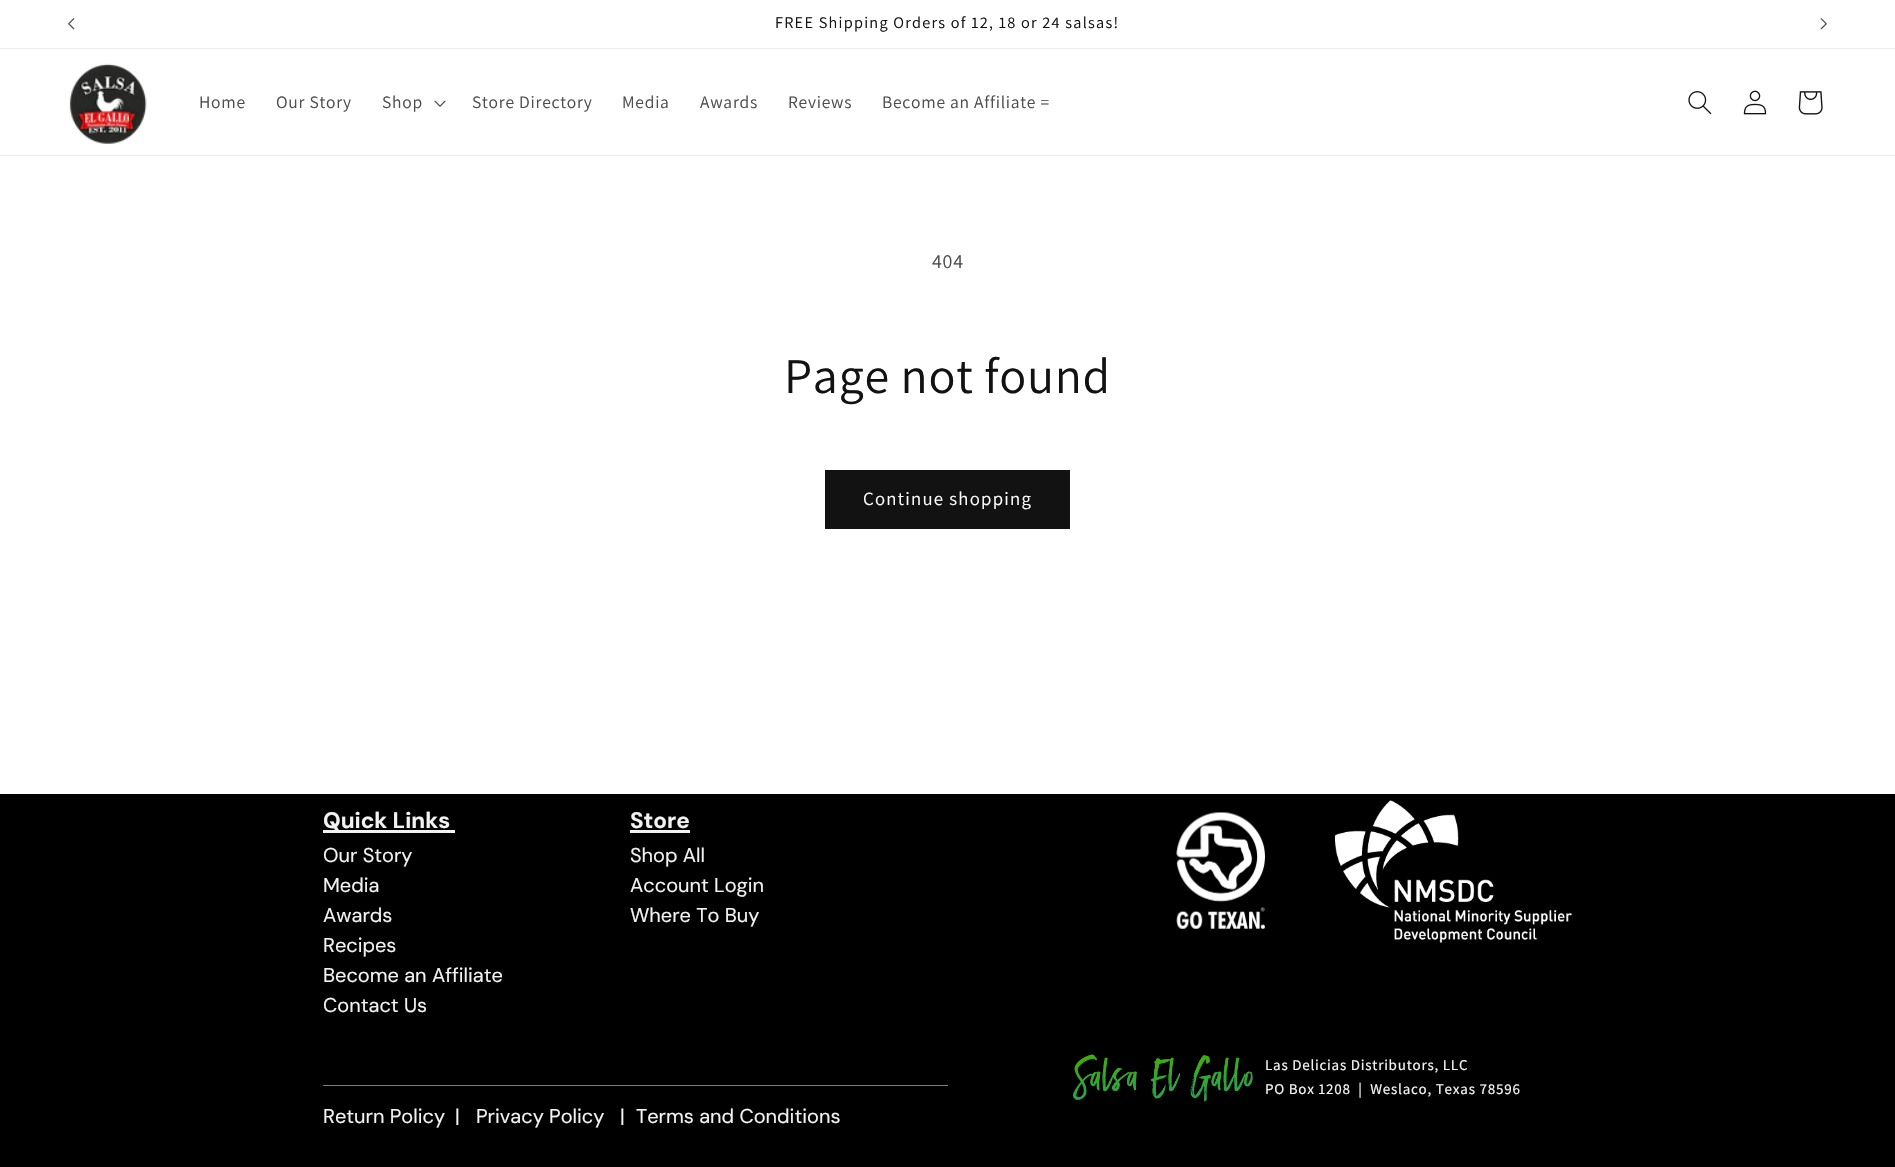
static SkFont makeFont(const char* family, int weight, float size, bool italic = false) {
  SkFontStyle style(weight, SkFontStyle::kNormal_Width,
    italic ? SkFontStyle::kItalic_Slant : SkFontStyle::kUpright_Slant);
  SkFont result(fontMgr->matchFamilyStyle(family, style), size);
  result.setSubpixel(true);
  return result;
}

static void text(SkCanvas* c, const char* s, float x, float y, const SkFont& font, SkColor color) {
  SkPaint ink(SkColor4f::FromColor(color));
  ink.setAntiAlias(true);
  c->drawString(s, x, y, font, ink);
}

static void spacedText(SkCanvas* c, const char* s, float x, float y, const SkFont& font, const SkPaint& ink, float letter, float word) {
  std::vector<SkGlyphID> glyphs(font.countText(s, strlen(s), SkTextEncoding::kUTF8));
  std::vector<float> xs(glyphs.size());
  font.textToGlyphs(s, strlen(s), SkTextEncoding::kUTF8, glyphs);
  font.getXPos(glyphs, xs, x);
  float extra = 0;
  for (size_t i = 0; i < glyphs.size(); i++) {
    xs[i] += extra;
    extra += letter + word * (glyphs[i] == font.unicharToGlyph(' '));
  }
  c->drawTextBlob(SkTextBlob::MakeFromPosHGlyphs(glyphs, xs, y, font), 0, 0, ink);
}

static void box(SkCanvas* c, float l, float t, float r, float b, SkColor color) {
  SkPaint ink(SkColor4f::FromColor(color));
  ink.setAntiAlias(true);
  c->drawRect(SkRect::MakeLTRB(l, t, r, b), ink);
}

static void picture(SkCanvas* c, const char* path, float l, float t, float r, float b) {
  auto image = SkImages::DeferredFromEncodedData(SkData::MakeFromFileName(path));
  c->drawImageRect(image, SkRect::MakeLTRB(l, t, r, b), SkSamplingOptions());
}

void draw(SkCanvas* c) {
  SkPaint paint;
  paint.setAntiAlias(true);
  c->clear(0xffffffff);
  box(c, 0, 48, 1895, 49, 0xffececec);
  picture(c, "img_01.png", 68, 18, 75, 30);
  SkFont face1 = makeFont("Assistant", 400, 16.25f);
  paint.setColor(0xff121212);
  spacedText(c, "FREE Shipping Orders of 12, 18 or 24 salsas!", 775, 28, face1, paint, 1.25f, 0);
  picture(c, "img_02.png", 1820, 18, 1827, 30);
  box(c, 0, 155, 1895, 156, 0xffececec);
  picture(c, "img_03.png", 69, 63, 147, 144);
  SkFont face2 = makeFont("Assistant", 400, 17.5f);
  paint.setColor(0xff4d4d4d);
  spacedText(c, "Home", 199, 108, face2, paint, 0.75f, 0);
  spacedText(c, "Our Story", 276, 108, face2, paint, 0.75f, 0);
  spacedText(c, "Shop", 382, 108, face2, paint, 0.75f, 0);
  picture(c, "img_04.png", 434, 100, 446, 107);
  spacedText(c, "Store Directory", 472, 108, face2, paint, 0.75f, 0);
  spacedText(c, "Media", 622, 108, face2, paint, 0.75f, 0);
  spacedText(c, "Awards", 700, 108, face2, paint, 0.75f, 0);
  spacedText(c, "Reviews", 788, 108, face2, paint, 0.75f, 0);
  spacedText(c, "Become an Affiliate =", 882, 108, face2, paint, 0.75f, 0);
  picture(c, "img_05.png", 1688, 91, 1712, 115);
  picture(c, "img_06.png", 1743, 90, 1767, 115);
  picture(c, "img_07.png", 1798, 91, 1823, 115);
  SkFont face3 = makeFont("Assistant", 400, 20);
  spacedText(c, "404", 932, 268, face3, paint, 0.75f, 0);
  SkFont face4 = makeFont("Assistant", 400, 50);
  paint.setColor(0xff121212);
  spacedText(c, "Page not found", 784, 393, face4, paint, 0.75f, 0);
  box(c, 825, 470, 1070, 529, 0xff121212);
  SkFont face5 = makeFont("Assistant", 400, 18.75f);
  paint.setColor(0xffffffff);
  spacedText(c, "Continue shopping", 863, 505, face5, paint, 1.25f, 0);
  box(c, 0, 794, 1895, 1167, 0xff000000);
  box(c, 323, 830, 455, 833, 0xfff2f2f2);
  SkFont face6 = makeFont("DM Sans", 700, 22.5f);
  text(c, "Quick Links", 323, 828, face6, 0xfff2f2f2);
  SkFont face7 = makeFont("DM Sans", 400, 20);
  text(c, "Our Story", 323, 862, face7, 0xfff2f2f2);
  text(c, "Media", 323, 892, face7, 0xfff2f2f2);
  text(c, "Awards", 323, 922, face7, 0xfff2f2f2);
  text(c, "Recipes", 323, 952, face7, 0xfff2f2f2);
  text(c, "Become an Affiliate", 323, 982, face7, 0xfff2f2f2);
  text(c, "Store", 630, 828, face6, 0xfff2f2f2);
  box(c, 630, 830, 690, 833, 0xfff2f2f2);
  text(c, "Shop All", 630, 862, face7, 0xfff2f2f2);
  text(c, "Account Login", 630, 892, face7, 0xfff2f2f2);
  text(c, "Where To Buy", 630, 922, face7, 0xfff2f2f2);
  text(c, "Contact Us", 323, 1012, face7, 0xfff2f2f2);
  picture(c, "img_08.png", 1176, 812, 1265, 929);
  picture(c, "img_09.png", 1335, 800, 1572, 943);
  box(c, 323, 1085, 948, 1086, 0xff7d7d7d);
  picture(c, "img_10.png", 1072, 1054, 1253, 1102);
  SkFont face8 = makeFont("Assistant", 500, 15);
  paint.setColor(0xfff2f2f2);
  spacedText(c, "Las Delicias Distributors, LLC", 1265, 1070, face8, paint, 0.75f, 0);
  spacedText(c, "PO Box 1208  |  Weslaco, Texas 78596", 1265, 1094, face8, paint, 0.75f, 0);
  text(c, "Return Policy", 323, 1123, face7, 0xfff2f2f2);
  text(c, "|", 455, 1123, face7, 0xfff2f2f2);
  text(c, "Privacy Policy", 476, 1123, face7, 0xfff2f2f2);
  text(c, "|", 620, 1123, face7, 0xfff2f2f2);
  text(c, "Terms and Conditions", 636, 1123, face7, 0xfff2f2f2);
}
